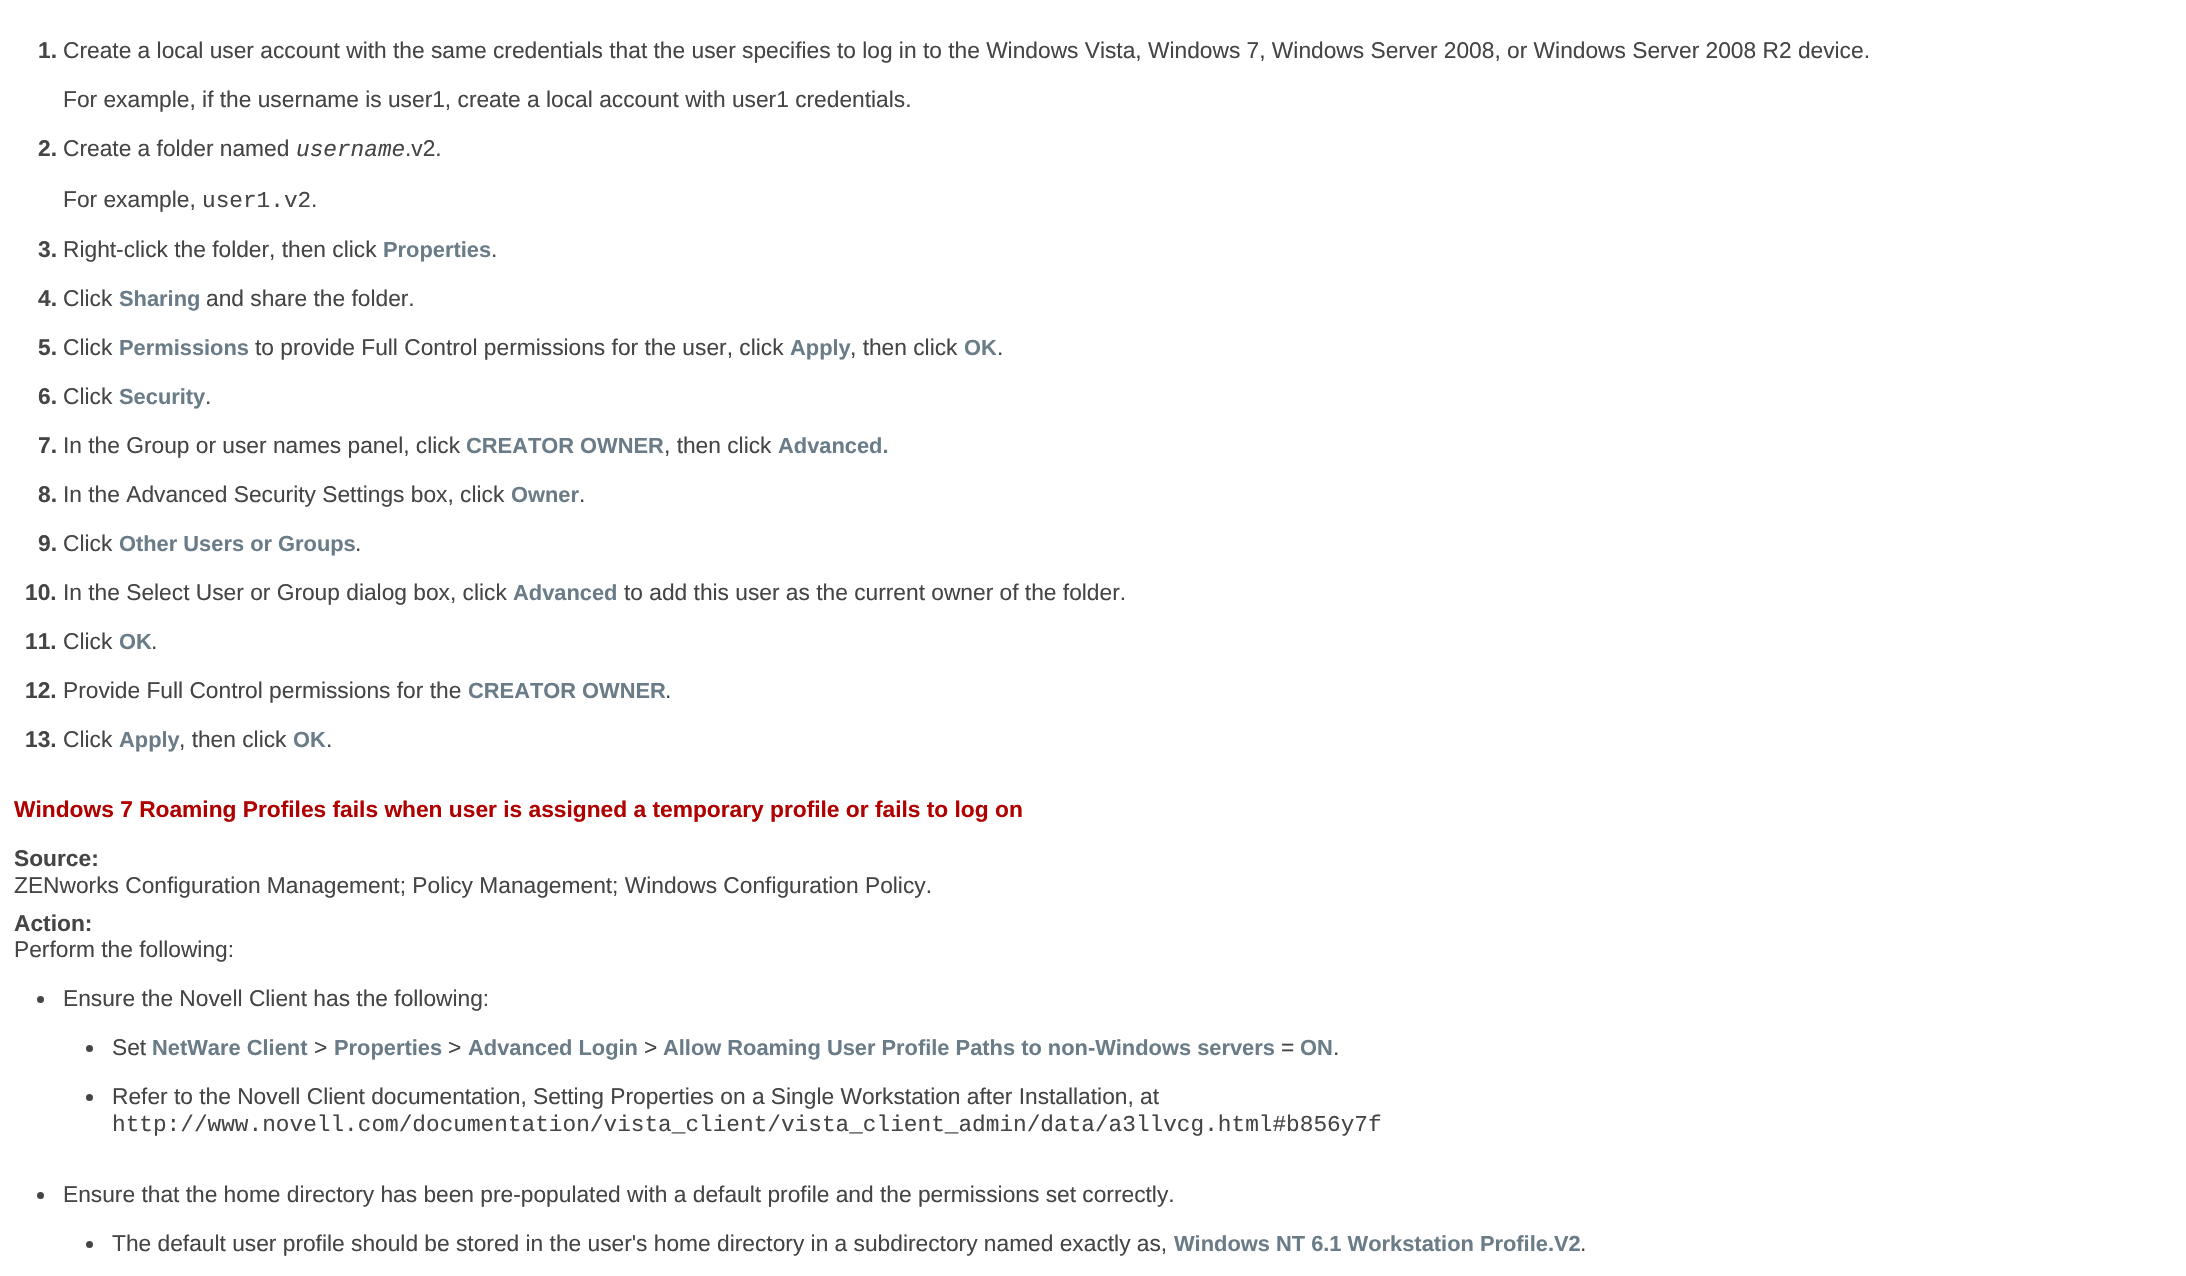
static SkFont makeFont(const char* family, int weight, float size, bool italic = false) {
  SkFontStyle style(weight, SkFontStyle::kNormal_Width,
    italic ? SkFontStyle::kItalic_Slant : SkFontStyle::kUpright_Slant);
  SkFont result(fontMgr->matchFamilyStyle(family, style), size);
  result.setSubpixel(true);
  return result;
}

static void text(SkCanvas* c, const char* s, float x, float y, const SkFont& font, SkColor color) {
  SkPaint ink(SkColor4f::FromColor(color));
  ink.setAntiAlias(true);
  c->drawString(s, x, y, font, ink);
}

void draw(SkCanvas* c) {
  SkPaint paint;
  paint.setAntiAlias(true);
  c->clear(0xffffffff);
  SkFont face1 = makeFont("Liberation Sans", 700, 22.75f);
  text(c, "1.", 38, 58, face1, 0xff454545);
  SkFont face2 = makeFont("Liberation Sans", 400, 22.75f);
  text(c, "Create a local user account with the same credentials that the user specifies to log in to the Windows Vista, Windows 7, Windows Server 2008, or Windows Server 2008 R2 device.", 63, 58, face2, 0xff454545);
  text(c, "For example, if the username is user1, create a local account with user1 credentials.", 63, 107, face2, 0xff454545);
  text(c, "2.", 38, 156, face1, 0xff454545);
  text(c, "Create a folder named", 63, 156, face2, 0xff454545);
  SkFont face3 = makeFont("Liberation Mono", 400, 22.75f, true);
  text(c, "username", 296, 156, face3, 0xff454545);
  text(c, ".v2.", 405, 156, face2, 0xff454545);
  text(c, "For example,", 63, 207, face2, 0xff454545);
  SkFont face4 = makeFont("Liberation Mono", 400, 22.75f);
  text(c, "user1.v2", 202, 207, face4, 0xff454545);
  text(c, ".", 311, 207, face2, 0xff454545);
  text(c, "3.", 38, 257, face1, 0xff454545);
  text(c, "Right-click the folder, then click", 63, 257, face2, 0xff454545);
  SkFont face5 = makeFont("Liberation Sans", 700, 21.85f);
  text(c, "Properties", 383, 257, face5, 0xff697c87);
  text(c, ".", 491, 257, face2, 0xff454545);
  text(c, "4.", 38, 306, face1, 0xff454545);
  text(c, "Click", 63, 306, face2, 0xff454545);
  text(c, "Sharing", 119, 306, face5, 0xff697c87);
  text(c, "and share the folder.", 206, 306, face2, 0xff454545);
  text(c, "5.", 38, 355, face1, 0xff454545);
  text(c, "Click", 63, 355, face2, 0xff454545);
  text(c, "Permissions", 119, 355, face5, 0xff697c87);
  text(c, "to provide Full Control permissions for the user, click", 255, 355, face2, 0xff454545);
  text(c, "Apply", 790, 355, face5, 0xff697c87);
  text(c, ", then click", 850, 355, face2, 0xff454545);
  text(c, "OK", 964, 355, face5, 0xff697c87);
  text(c, ".", 997, 355, face2, 0xff454545);
  text(c, "6.", 38, 404, face1, 0xff454545);
  text(c, "Click", 63, 404, face2, 0xff454545);
  text(c, "Security", 119, 404, face5, 0xff697c87);
  text(c, ".", 205, 404, face2, 0xff454545);
  text(c, "7.", 38, 453, face1, 0xff454545);
  text(c, "In the Group or user names panel, click", 63, 453, face2, 0xff454545);
  text(c, "CREATOR OWNER", 466, 453, face5, 0xff697c87);
  text(c, ", then click", 664, 453, face2, 0xff454545);
  text(c, "Advanced.", 778, 453, face5, 0xff697c87);
  text(c, "8.", 38, 502, face1, 0xff454545);
  text(c, "In the Advanced Security Settings box, click", 63, 502, face2, 0xff454545);
  text(c, "Owner", 511, 502, face5, 0xff697c87);
  text(c, ".", 579, 502, face2, 0xff454545);
  text(c, "9.", 38, 551, face1, 0xff454545);
  text(c, "Click", 63, 551, face2, 0xff454545);
  text(c, "Other Users or Groups", 119, 551, face5, 0xff697c87);
  text(c, ".", 355, 551, face2, 0xff454545);
  text(c, "10.", 25, 600, face1, 0xff454545);
  text(c, "In the Select User or Group dialog box, click", 63, 600, face2, 0xff454545);
  text(c, "Advanced", 513, 600, face5, 0xff697c87);
  text(c, "to add this user as the current owner of the folder.", 624, 600, face2, 0xff454545);
  text(c, "11.", 25, 649, face1, 0xff454545);
  text(c, "Click", 63, 649, face2, 0xff454545);
  text(c, "OK", 119, 649, face5, 0xff697c87);
  text(c, ".", 151, 649, face2, 0xff454545);
  text(c, "12.", 25, 698, face1, 0xff454545);
  text(c, "Provide Full Control permissions for the", 63, 698, face2, 0xff454545);
  text(c, "CREATOR OWNER", 468, 698, face5, 0xff697c87);
  text(c, ".", 665, 698, face2, 0xff454545);
  text(c, "13.", 25, 747, face1, 0xff454545);
  text(c, "Click", 63, 747, face2, 0xff454545);
  text(c, "Apply", 119, 747, face5, 0xff697c87);
  text(c, ", then click", 179, 747, face2, 0xff454545);
  text(c, "OK", 293, 747, face5, 0xff697c87);
  text(c, ".", 326, 747, face2, 0xff454545);
  text(c, "Windows 7 Roaming Profiles fails when user is assigned a temporary profile or fails to log on", 14, 817, face1, 0xffb00000);
  text(c, "Source:", 14, 866, face1, 0xff454545);
  text(c, "ZENworks Configuration Management; Policy Management; Windows Configuration Policy.", 14, 893, face2, 0xff454545);
  text(c, "Action:", 14, 931, face1, 0xff454545);
  text(c, "Perform the following:", 14, 957, face2, 0xff454545);
  paint.setColor(0xff454545);
  c->drawCircle(40.5f, 999.5f, 3.5f, paint);
  text(c, "Ensure the Novell Client has the following:", 63, 1006, face2, 0xff454545);
  c->drawCircle(89.5f, 1048.5f, 3.5f, paint);
  text(c, "Set", 112, 1055, face2, 0xff454545);
  text(c, "NetWare Client", 152, 1055, face5, 0xff697c87);
  text(c, ">", 314, 1055, face2, 0xff454545);
  text(c, "Properties", 334, 1055, face5, 0xff697c87);
  text(c, ">", 448, 1055, face2, 0xff454545);
  text(c, "Advanced Login", 468, 1055, face5, 0xff697c87);
  text(c, ">", 644, 1055, face2, 0xff454545);
  text(c, "Allow Roaming User Profile Paths to non-Windows servers", 663, 1055, face5, 0xff697c87);
  text(c, "=", 1281, 1055, face2, 0xff454545);
  text(c, "ON", 1300, 1055, face5, 0xff697c87);
  text(c, ".", 1333, 1055, face2, 0xff454545);
  c->drawCircle(89.5f, 1097.5f, 3.5f, paint);
  text(c, "Refer to the Novell Client documentation, Setting Properties on a Single Workstation after Installation, at", 112, 1104, face2, 0xff454545);
  text(c, "http://www.novell.com/documentation/vista_client/vista_client_admin/data/a3llvcg.html#b856y7f", 112, 1131, face4, 0xff454545);
  c->drawCircle(40.5f, 1195.5f, 3.5f, paint);
  text(c, "Ensure that the home directory has been pre-populated with a default profile and the permissions set correctly.", 63, 1202, face2, 0xff454545);
  c->drawCircle(89.5f, 1244.5f, 3.5f, paint);
  text(c, "The default user profile should be stored in the user's home directory in a subdirectory named exactly as,", 112, 1251, face2, 0xff454545);
  text(c, "Windows NT 6.1 Workstation Profile.V2", 1174, 1251, face5, 0xff697c87);
  text(c, ".", 1580, 1251, face2, 0xff454545);
}
